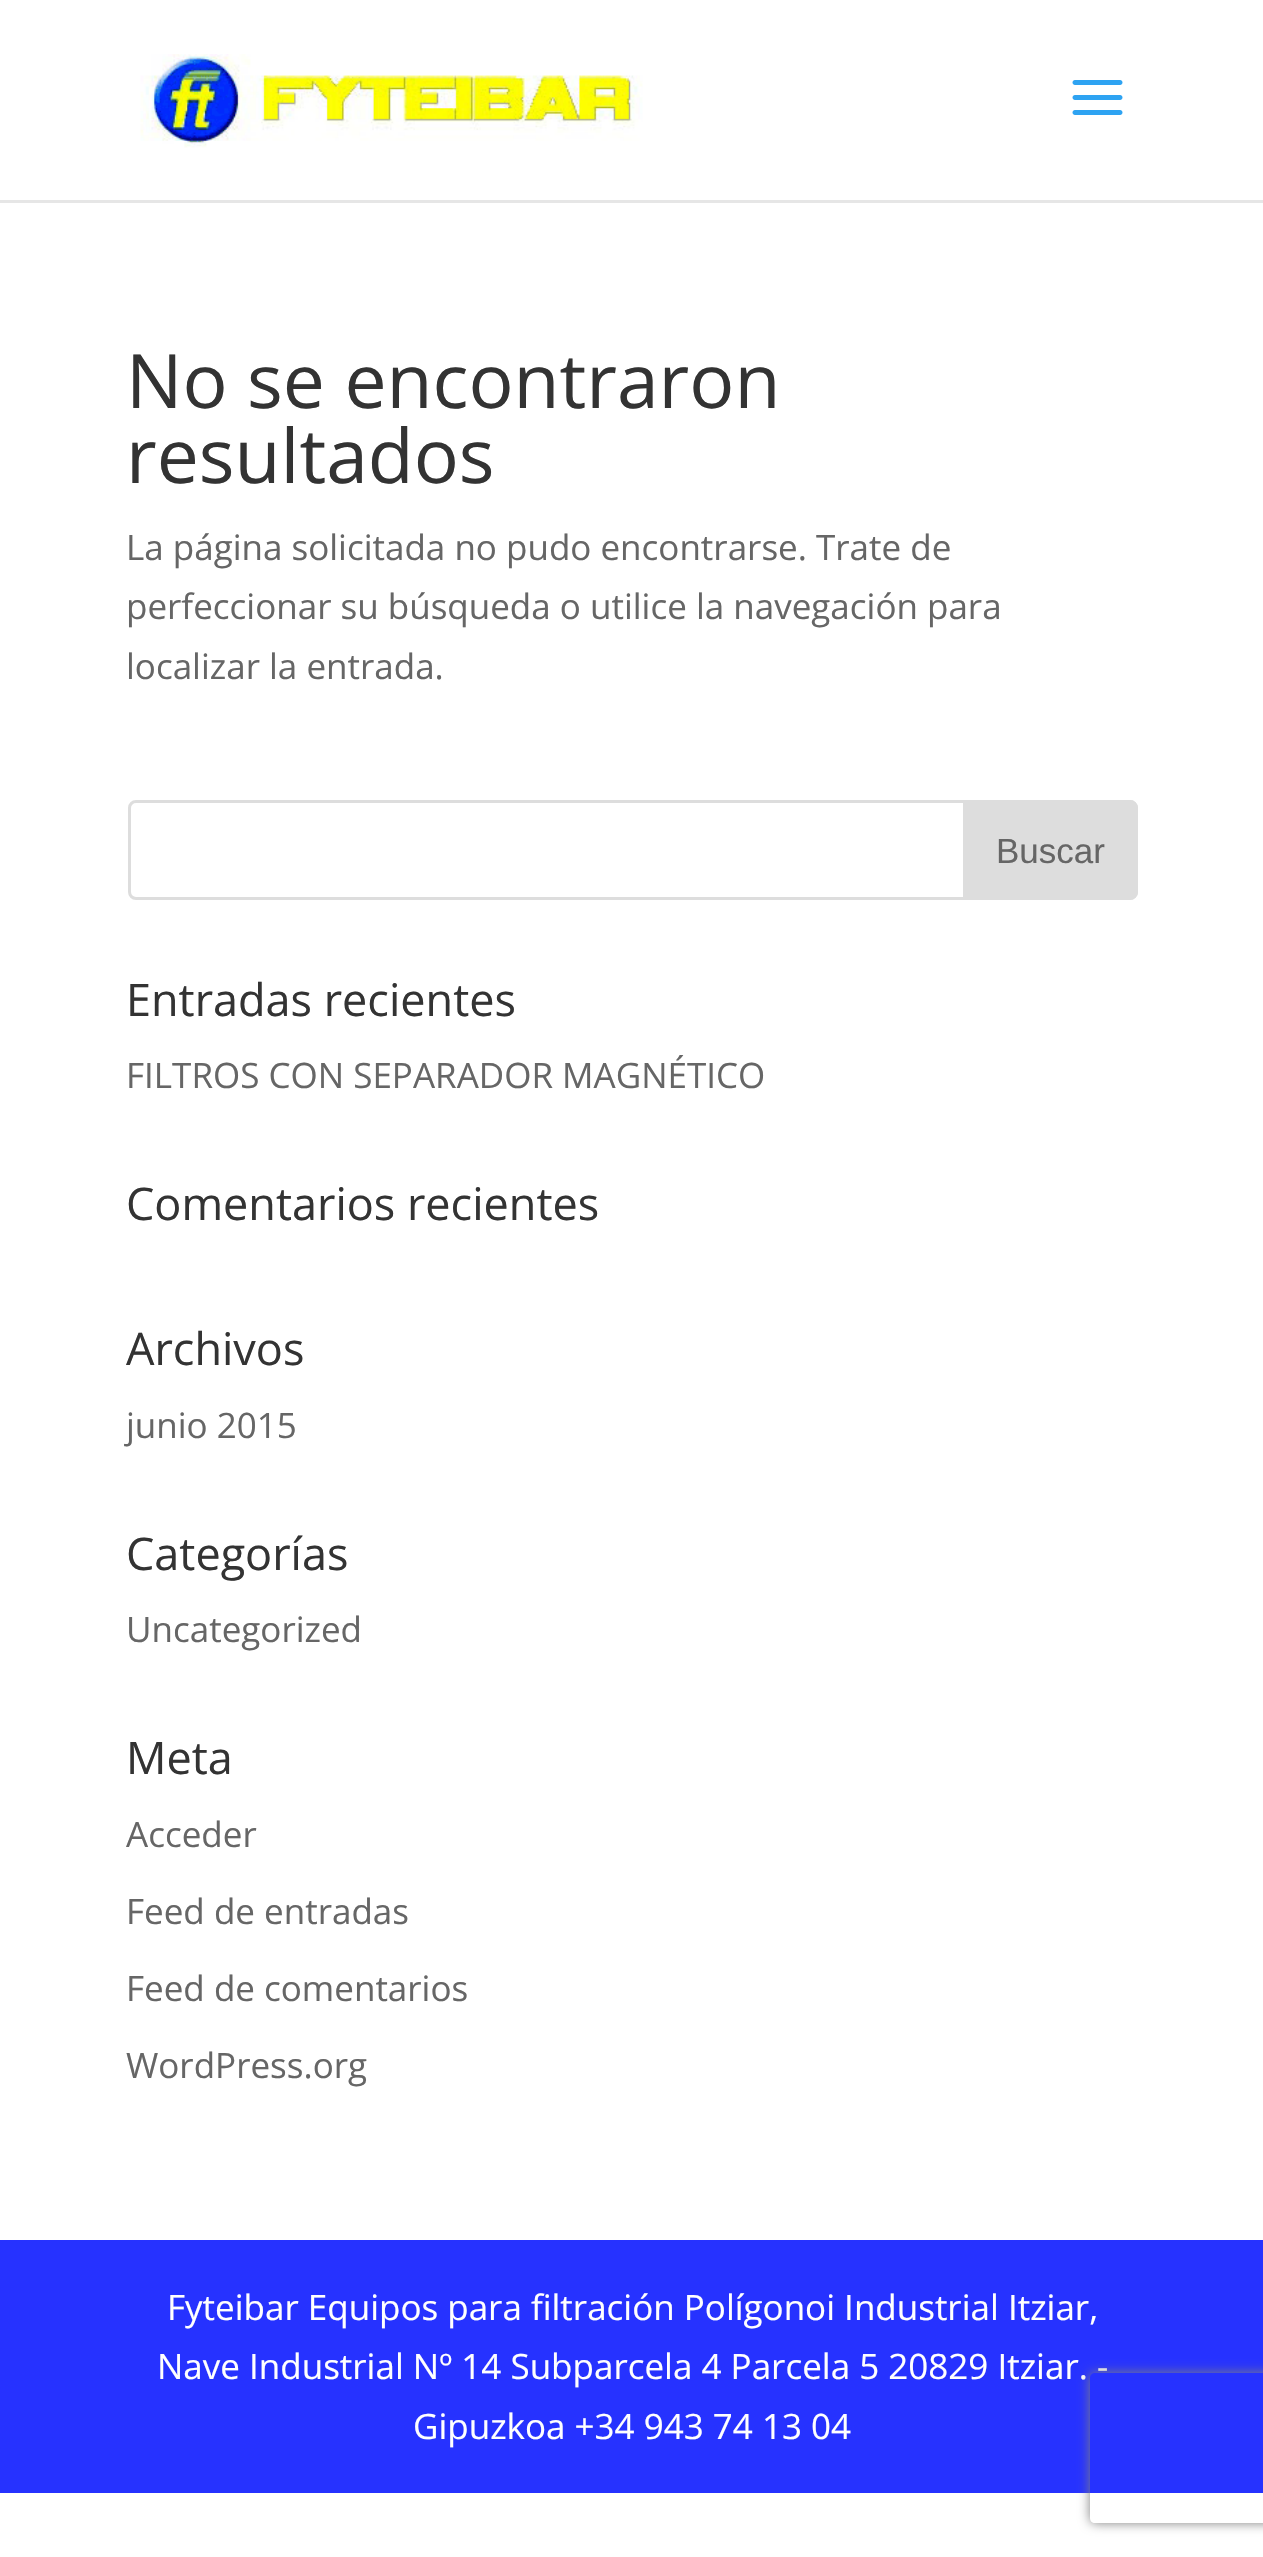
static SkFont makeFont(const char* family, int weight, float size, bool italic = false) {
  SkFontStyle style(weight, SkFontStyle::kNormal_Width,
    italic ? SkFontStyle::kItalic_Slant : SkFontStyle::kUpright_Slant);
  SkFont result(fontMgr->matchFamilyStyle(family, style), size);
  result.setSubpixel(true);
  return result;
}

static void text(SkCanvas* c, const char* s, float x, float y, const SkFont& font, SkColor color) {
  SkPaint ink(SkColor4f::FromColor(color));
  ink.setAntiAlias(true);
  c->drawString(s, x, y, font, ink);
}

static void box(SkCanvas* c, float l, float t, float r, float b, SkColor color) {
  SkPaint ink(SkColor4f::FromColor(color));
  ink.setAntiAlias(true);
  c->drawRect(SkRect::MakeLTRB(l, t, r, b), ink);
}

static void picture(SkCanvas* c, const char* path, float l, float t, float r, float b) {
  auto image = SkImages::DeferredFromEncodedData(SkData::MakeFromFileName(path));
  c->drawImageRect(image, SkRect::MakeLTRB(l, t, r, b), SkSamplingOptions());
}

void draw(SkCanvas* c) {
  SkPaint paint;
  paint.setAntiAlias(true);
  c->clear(0xffffffff);
  box(c, 0, 200, 1263, 203, 0xffe6e6e6);
  picture(c, "img_01.png", 140, 54, 643, 148);
  picture(c, "img_02.png", 1072, 80, 1123, 115);
  SkFont face1 = makeFont("Open Sans", 400, 75);
  text(c, "No se encontraron", 126, 408, face1, 0xff333333);
  text(c, "resultados", 126, 483, face1, 0xff333333);
  SkFont face2 = makeFont("Open Sans", 400, 35);
  text(c, "La página solicitada no pudo encontrarse. Trate de", 126, 560, face2, 0xff666666);
  text(c, "perfeccionar su búsqueda o utilice la navegación para", 126, 619, face2, 0xff666666);
  text(c, "localizar la entrada.", 126, 679, face2, 0xff666666);
  paint.setStyle(SkPaint::kStroke_Style);
  paint.setStrokeWidth(3);
  paint.setColor(0xffdddddd);
  c->drawRoundRect(SkRect::MakeLTRB(129.5f, 801.5f, 1136.5f, 898.5f), 6.5f, 6.5f, paint);
  paint.setStyle(SkPaint::kFill_Style);
  c->drawPath(SkPathBuilder().moveTo(964.5f, 801.5f).lineTo(1130, 801.5f).cubicTo(1133.5f, 801.5f, 1136.5f, 804.5f, 1136.5f, 808).lineTo(1136.5f, 892).cubicTo(1136.5f, 895.5f, 1133.5f, 898.5f, 1130, 898.5f).lineTo(964.5f, 898.5f).close().detach(), paint);
  paint.setStyle(SkPaint::kStroke_Style);
  c->drawPath(SkPathBuilder().moveTo(964.5f, 801.5f).lineTo(1130, 801.5f).cubicTo(1133.5f, 801.5f, 1136.5f, 804.5f, 1136.5f, 808).lineTo(1136.5f, 892).cubicTo(1136.5f, 895.5f, 1133.5f, 898.5f, 1130, 898.5f).lineTo(964.5f, 898.5f).close().detach(), paint);
  SkFont face3 = makeFont("Liberation Sans", 400, 35);
  text(c, "Buscar", 996, 863, face3, 0xff666666);
  SkFont face4 = makeFont("Open Sans", 400, 45);
  text(c, "Entradas recientes", 126, 1016, face4, 0xff333333);
  text(c, "FILTROS CON SEPARADOR MAGNÉTICO", 126, 1088, face2, 0xff666666);
  text(c, "Comentarios recientes", 126, 1220, face4, 0xff333333);
  text(c, "Archivos", 126, 1365, face4, 0xff333333);
  text(c, "junio 2015", 126, 1438, face2, 0xff666666);
  text(c, "Categorías", 126, 1570, face4, 0xff333333);
  text(c, "Uncategorized", 126, 1642, face2, 0xff666666);
  text(c, "Meta", 126, 1774, face4, 0xff333333);
  text(c, "Acceder", 126, 1847, face2, 0xff666666);
  text(c, "Feed de entradas", 126, 1924, face2, 0xff666666);
  text(c, "Feed de comentarios", 126, 2001, face2, 0xff666666);
  text(c, "WordPress.org", 126, 2078, face2, 0xff666666);
  box(c, 0, 2240, 1263, 2493, 0xff2632ff);
  text(c, "Fyteibar Equipos para filtración Polígonoi Industrial Itziar,", 167, 2320, face2, 0xffffffff);
  text(c, "Nave Industrial Nº 14 Subparcela 4 Parcela 5 20829 Itziar. -", 157, 2379, face2, 0xffffffff);
  text(c, "Gipuzkoa +34 943 74 13 04", 413, 2439, face2, 0xffffffff);
  c->save();
  c->clipPath(SkPathBuilder(SkPathFillType::kEvenOdd).moveTo(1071, 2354).lineTo(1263, 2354).lineTo(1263, 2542).lineTo(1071, 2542).close().moveTo(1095, 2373).lineTo(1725, 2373).cubicTo(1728, 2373, 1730, 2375, 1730, 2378).lineTo(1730, 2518).cubicTo(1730, 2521, 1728, 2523, 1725, 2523).lineTo(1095, 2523).cubicTo(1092, 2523, 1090, 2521, 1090, 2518).lineTo(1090, 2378).cubicTo(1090, 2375, 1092, 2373, 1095, 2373).close().detach(), true);
  paint.setStyle(SkPaint::kFill_Style);
  paint.setColor(0xff808080);
  paint.setMaskFilter(SkMaskFilter::MakeBlur(kNormal_SkBlurStyle, 6));
  c->drawRoundRect(SkRect::MakeLTRB(1090, 2373, 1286, 2523), 5, 5, paint);
  paint.setMaskFilter(nullptr);
  c->restore();
}
